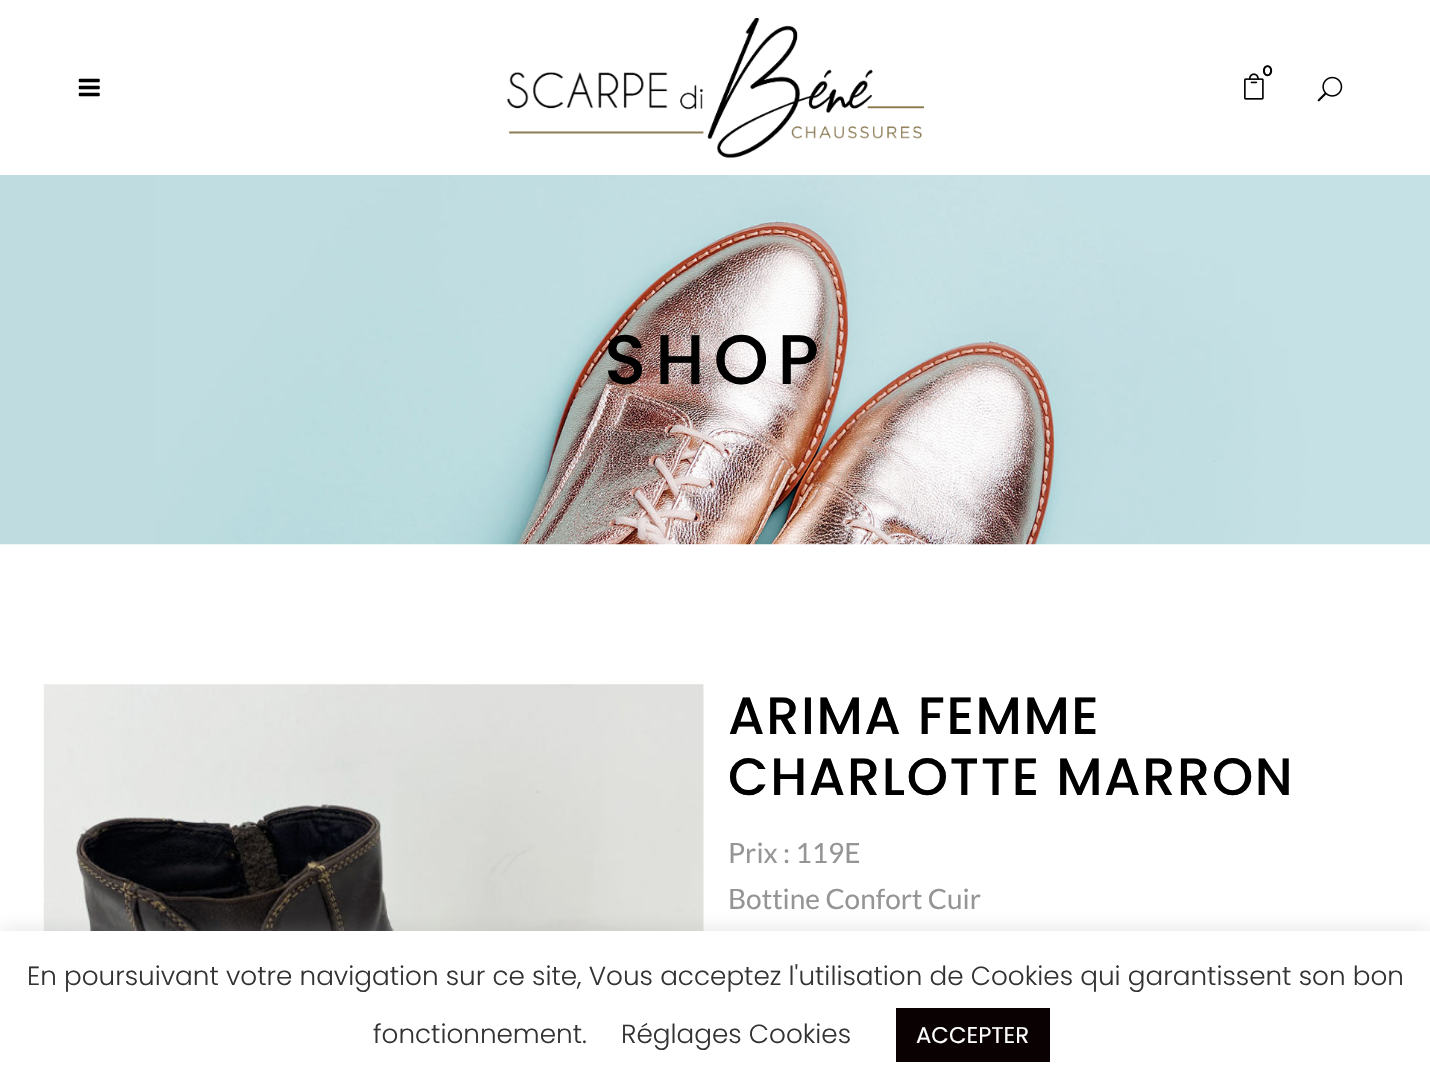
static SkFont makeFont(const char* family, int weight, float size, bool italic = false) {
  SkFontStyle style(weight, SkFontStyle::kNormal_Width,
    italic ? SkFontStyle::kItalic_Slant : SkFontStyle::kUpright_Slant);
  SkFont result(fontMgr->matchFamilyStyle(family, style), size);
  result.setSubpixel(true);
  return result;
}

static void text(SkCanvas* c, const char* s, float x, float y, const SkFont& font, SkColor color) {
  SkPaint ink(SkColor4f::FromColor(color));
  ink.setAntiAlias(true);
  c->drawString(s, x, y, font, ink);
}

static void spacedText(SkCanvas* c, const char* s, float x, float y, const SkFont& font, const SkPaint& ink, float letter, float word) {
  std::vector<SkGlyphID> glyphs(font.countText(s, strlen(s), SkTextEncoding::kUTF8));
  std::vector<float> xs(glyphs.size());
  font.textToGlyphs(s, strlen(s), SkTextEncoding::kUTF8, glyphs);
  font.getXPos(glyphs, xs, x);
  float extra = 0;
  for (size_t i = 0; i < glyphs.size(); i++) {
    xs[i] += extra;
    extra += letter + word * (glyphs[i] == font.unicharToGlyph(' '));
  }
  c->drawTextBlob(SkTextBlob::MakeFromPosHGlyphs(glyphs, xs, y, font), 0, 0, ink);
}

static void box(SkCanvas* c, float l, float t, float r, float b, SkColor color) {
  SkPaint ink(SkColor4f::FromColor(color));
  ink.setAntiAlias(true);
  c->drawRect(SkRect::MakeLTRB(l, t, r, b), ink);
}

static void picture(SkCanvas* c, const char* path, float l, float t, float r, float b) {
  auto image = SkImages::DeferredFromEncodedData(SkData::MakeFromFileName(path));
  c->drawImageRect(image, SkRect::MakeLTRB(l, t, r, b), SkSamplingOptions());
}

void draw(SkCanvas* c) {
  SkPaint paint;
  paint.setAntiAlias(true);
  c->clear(0xffffffff);
  picture(c, "img_01.png", 78, 78, 100, 97);
  picture(c, "img_02.png", 507, 18, 924, 158);
  picture(c, "img_03.png", 1244, 73, 1264, 100);
  SkFont face1 = makeFont("Raleway", 600, 18);
  text(c, "0", 1262, 76, face1, 0xff000000);
  picture(c, "img_04.png", 1317, 76, 1343, 102);
  picture(c, "img_05.png", 0, 175, 1430, 545);
  SkFont face2 = makeFont("Poppins", 500, 70);
  paint.setColor(0xff000000);
  spacedText(c, "SHOP", 604, 384, face2, paint, 9, 0);
  picture(c, "img_06.png", 43, 684, 704, 931);
  SkFont face3 = makeFont("Poppins", 500, 52.5f);
  spacedText(c, "ARIMA FEMME", 728, 734, face3, paint, 1.6f, 0);
  spacedText(c, "CHARLOTTE MARRON", 728, 795, face3, paint, 1.6f, 0);
  SkFont face4 = makeFont("Lato", 400, 28);
  text(c, "Prix : 119E", 728, 863, face4, 0xff959595);
  text(c, "Bottine Confort Cuir", 728, 909, face4, 0xff959595);
  paint.setColor(0x4dacabab);
  paint.setMaskFilter(SkMaskFilter::MakeBlur(kNormal_SkBlurStyle, 9));
  c->drawRect(SkRect::MakeLTRB(0, 929, 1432, 1090), paint);
  paint.setMaskFilter(nullptr);
  box(c, 0, 931, 1430, 1092, 0xffffffff);
  SkFont face5 = makeFont("Poppins", 300, 26.25f);
  text(c, "En poursuivant votre navigation sur ce site, Vous acceptez l'utilisation de Cookies qui garantissent son bon", 27, 985, face5, 0xff333333);
  text(c, "fonctionnement.", 373, 1043, face5, 0xff333333);
  text(c, "Réglages Cookies", 621, 1043, face5, 0xff333333);
  box(c, 896, 1008, 1050, 1062, 0xff0a0103);
  SkFont face6 = makeFont("Poppins", 400, 22.75f);
  text(c, "ACCEPTER", 916, 1043, face6, 0xffffffff);
}
